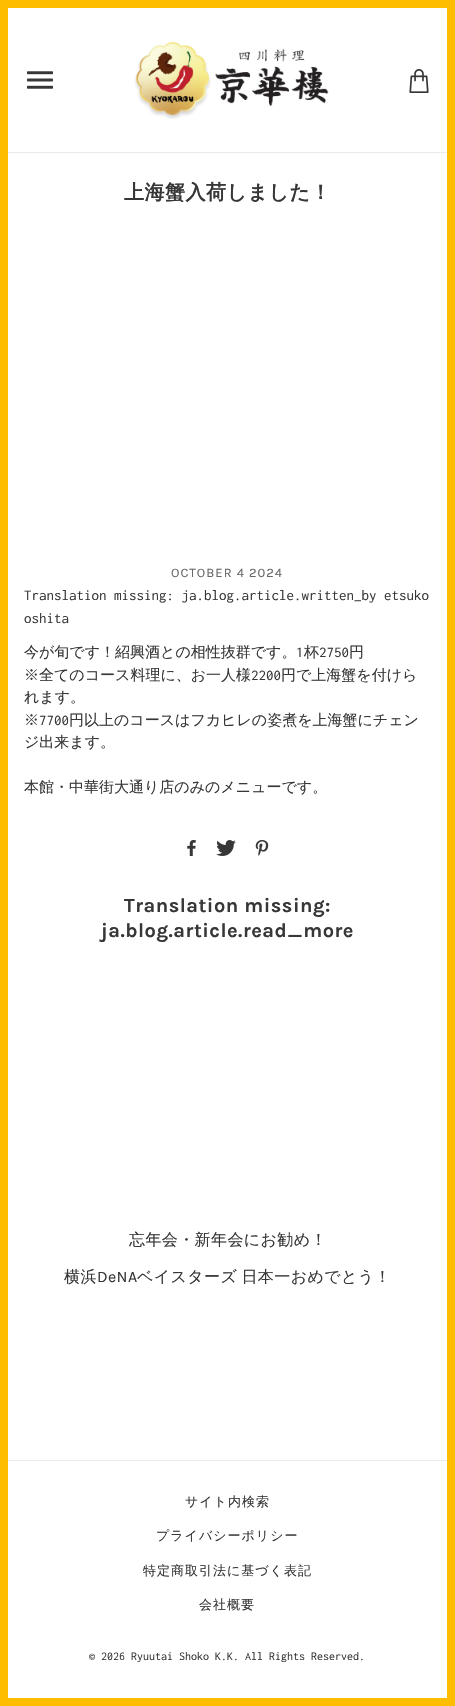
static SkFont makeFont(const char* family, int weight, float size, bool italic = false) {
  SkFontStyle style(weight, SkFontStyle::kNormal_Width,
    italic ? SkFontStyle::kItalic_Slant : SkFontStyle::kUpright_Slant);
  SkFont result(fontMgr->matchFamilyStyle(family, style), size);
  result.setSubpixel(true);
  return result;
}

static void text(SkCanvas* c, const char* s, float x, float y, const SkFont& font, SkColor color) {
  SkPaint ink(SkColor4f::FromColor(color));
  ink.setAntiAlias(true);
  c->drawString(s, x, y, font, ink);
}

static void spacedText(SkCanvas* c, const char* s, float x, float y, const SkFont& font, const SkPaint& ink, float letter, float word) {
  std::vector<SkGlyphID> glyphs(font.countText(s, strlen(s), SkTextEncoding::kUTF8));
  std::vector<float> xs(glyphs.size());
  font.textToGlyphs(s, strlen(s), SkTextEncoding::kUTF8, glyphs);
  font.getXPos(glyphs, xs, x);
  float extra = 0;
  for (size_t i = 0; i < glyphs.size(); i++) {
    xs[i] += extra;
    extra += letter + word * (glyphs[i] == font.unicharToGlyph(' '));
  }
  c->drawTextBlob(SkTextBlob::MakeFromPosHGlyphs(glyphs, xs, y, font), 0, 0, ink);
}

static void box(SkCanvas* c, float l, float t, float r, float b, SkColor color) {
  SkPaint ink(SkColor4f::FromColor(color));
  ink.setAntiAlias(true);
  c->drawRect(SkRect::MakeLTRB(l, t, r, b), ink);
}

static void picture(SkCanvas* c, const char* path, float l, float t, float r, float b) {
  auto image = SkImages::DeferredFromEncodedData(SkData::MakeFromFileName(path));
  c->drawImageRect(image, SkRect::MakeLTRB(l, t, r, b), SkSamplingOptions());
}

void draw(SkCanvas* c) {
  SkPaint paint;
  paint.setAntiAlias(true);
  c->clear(0xffffffff);
  paint.setStyle(SkPaint::kStroke_Style);
  paint.setStrokeWidth(8);
  paint.setColor(0xffffbd00);
  c->drawRect(SkRect::MakeLTRB(4, 4, 451, 1702), paint);
  box(c, 8, 152, 447, 153, 0xffeaeaea);
  picture(c, "img_01.png", 27, 71, 53, 89);
  picture(c, "img_02.png", 134, 41, 329, 119);
  picture(c, "img_03.png", 409, 69, 429, 93);
  SkFont face1 = makeFont("WenQuanYi Zen Hei", 700, 20);
  paint.setStyle(SkPaint::kFill_Style);
  paint.setColor(0xff373737);
  spacedText(c, "上海蟹入荷しました！", 124, 199, face1, paint, 0.5f, 0);
  SkFont face2 = makeFont("Karla", 400, 13);
  paint.setColor(0xff676767);
  spacedText(c, "OCTOBER 4 2024", 171, 577, face2, paint, 1, 0);
  SkFont face3 = makeFont("Inconsolata", 400, 15);
  text(c, "Translation missing: ja.blog.article.written_by etsuko", 24, 600, face3, 0xff373737);
  text(c, "oshita", 24, 623, face3, 0xff373737);
  SkFont face4 = makeFont("WenQuanYi Zen Hei", 500, 15);
  text(c, "今が旬です！紹興酒との相性抜群です。", 24, 657, face4, 0xff373737);
  text(c, "1", 296, 657, face3, 0xff373737);
  text(c, "杯", 304, 657, face4, 0xff373737);
  text(c, "2750", 319, 657, face3, 0xff373737);
  text(c, "円", 349, 657, face4, 0xff373737);
  text(c, "※全てのコース料理に、お一人様", 24, 680, face4, 0xff373737);
  text(c, "2200", 251, 680, face3, 0xff373737);
  text(c, "円で上海蟹を付けら", 281, 680, face4, 0xff373737);
  text(c, "れます。", 24, 702, face4, 0xff373737);
  text(c, "※", 24, 725, face4, 0xff373737);
  text(c, "7700", 39, 725, face3, 0xff373737);
  text(c, "円以上のコースはフカヒレの姿煮を上海蟹にチェン", 69, 725, face4, 0xff373737);
  text(c, "ジ出来ます。", 24, 747, face4, 0xff373737);
  text(c, "本館・中華街大通り店のみのメニューです。", 24, 792, face4, 0xff373737);
  picture(c, "img_04.png", 187, 840, 196, 856);
  picture(c, "img_05.png", 216, 840, 236, 856);
  picture(c, "img_06.png", 255, 840, 269, 856);
  SkFont face5 = makeFont("Karla", 700, 20);
  paint.setColor(0xff373737);
  spacedText(c, "Translation missing:", 124, 912, face5, paint, 0.5f, 0);
  spacedText(c, "ja.blog.article.read_more", 101, 937, face5, paint, 0.5f, 0);
  SkFont face6 = makeFont("WenQuanYi Zen Hei", 500, 16);
  spacedText(c, "忘年会・新年会にお勧め！", 129, 1245, face6, paint, 0.4f, 0);
  spacedText(c, "横浜", 64, 1282, face6, paint, 0.4f, 0);
  SkFont face7 = makeFont("Karla", 400, 16);
  spacedText(c, "DeNA", 97, 1282, face7, paint, 0.4f, 0);
  spacedText(c, "ベイスターズ 日本一おめでとう！", 137, 1282, face6, paint, 0.4f, -1);
  box(c, 8, 1460, 447, 1461, 0xffeaeaea);
  SkFont face8 = makeFont("WenQuanYi Zen Hei", 500, 13);
  spacedText(c, "サイト内検索", 185, 1506, face8, paint, 1, 0);
  spacedText(c, "プライバシーポリシー", 156, 1540, face8, paint, 1, 0);
  spacedText(c, "特定商取引法に基づく表記", 143, 1575, face8, paint, 1, 0);
  spacedText(c, "会社概要", 199, 1609, face8, paint, 1, 0);
  SkFont face9 = makeFont("Inconsolata", 400, 12);
  text(c, "© 2026 Ryuutai Shoko K.K. All Rights Reserved.", 89, 1660, face9, 0xff373737);
}
